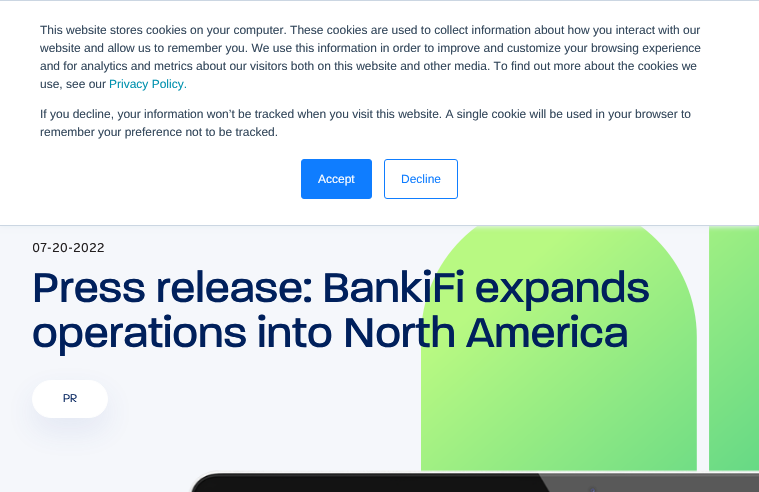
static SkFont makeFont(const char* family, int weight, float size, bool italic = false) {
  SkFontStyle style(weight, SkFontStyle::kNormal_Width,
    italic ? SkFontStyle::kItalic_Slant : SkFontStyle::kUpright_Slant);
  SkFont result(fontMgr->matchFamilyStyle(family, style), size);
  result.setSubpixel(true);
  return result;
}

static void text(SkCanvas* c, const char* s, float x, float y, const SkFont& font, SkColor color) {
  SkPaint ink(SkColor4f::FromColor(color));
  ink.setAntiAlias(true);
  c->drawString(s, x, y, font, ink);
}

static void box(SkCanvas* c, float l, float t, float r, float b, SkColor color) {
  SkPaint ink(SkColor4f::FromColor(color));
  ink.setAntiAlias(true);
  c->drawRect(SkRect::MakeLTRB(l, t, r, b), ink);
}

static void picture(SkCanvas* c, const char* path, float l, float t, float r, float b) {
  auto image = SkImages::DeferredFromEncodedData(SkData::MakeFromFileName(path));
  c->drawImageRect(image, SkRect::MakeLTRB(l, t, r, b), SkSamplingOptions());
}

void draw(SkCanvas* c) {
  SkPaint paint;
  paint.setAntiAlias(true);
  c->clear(0xfff5f7fb);
  picture(c, "img_01.png", 421, 226, 759, 473);
  paint.setColor(0xffeaf0f6);
  paint.setMaskFilter(SkMaskFilter::MakeBlur(kNormal_SkBlurStyle, 2.5f));
  c->drawRect(SkRect::MakeLTRB(0, 1, 759, 227), paint);
  paint.setMaskFilter(nullptr);
  box(c, 0, 1, 759, 225, 0xffffffff);
  box(c, 0, 0, 759, 1, 0xffcbd6e2);
  box(c, 0, 225, 759, 226, 0xffcbd6e2);
  SkFont face1 = makeFont("Liberation Sans", 400, 12);
  text(c, "This website stores cookies on your computer. These cookies are used to collect information about how you interact with our", 40, 34, face1, 0xff33475b);
  text(c, "website and allow us to remember you. We use this information in order to improve and customize your browsing experience", 40, 52, face1, 0xff33475b);
  text(c, "and for analytics and metrics about our visitors both on this website and other media. To find out more about the cookies we", 40, 70, face1, 0xff33475b);
  text(c, "use, see our", 40, 88, face1, 0xff33475b);
  text(c, "Privacy Policy.", 109, 88, face1, 0xff0091ae);
  text(c, "If you decline, your information won’t be tracked when you visit this website. A single cookie will be used in your browser to", 40, 118, face1, 0xff33475b);
  text(c, "remember your preference not to be tracked.", 40, 136, face1, 0xff33475b);
  paint.setColor(0xff0f7dff);
  c->drawRoundRect(SkRect::MakeLTRB(301.5f, 159.5f, 371.5f, 198.5f), 2.5f, 2.5f, paint);
  paint.setStyle(SkPaint::kStroke_Style);
  paint.setStrokeWidth(1);
  c->drawRoundRect(SkRect::MakeLTRB(301.5f, 159.5f, 371.5f, 198.5f), 2.5f, 2.5f, paint);
  text(c, "Accept", 318, 183, face1, 0xffffffff);
  c->drawRoundRect(SkRect::MakeLTRB(384.5f, 159.5f, 457.5f, 198.5f), 2.5f, 2.5f, paint);
  text(c, "Decline", 401, 183, face1, 0xff0f7dff);
  SkFont face2 = makeFont("Overpass", 400, 12.75f);
  text(c, "07-20-2022", 32, 252, face2, 0xff231f20);
  SkFont face3 = makeFont("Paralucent", 500, 45);
  text(c, "Press release: BankiFi expands", 32, 302, face3, 0xff00205c);
  text(c, "operations into North America", 32, 347, face3, 0xff00205c);
  paint.setStyle(SkPaint::kFill_Style);
  paint.setColor(0x1a385cad);
  paint.setMaskFilter(SkMaskFilter::MakeBlur(kNormal_SkBlurStyle, 15));
  c->drawRoundRect(SkRect::MakeLTRB(32, 393, 108, 431), 19, 19, paint);
  paint.setMaskFilter(nullptr);
  paint.setColor(0xffffffff);
  c->drawRoundRect(SkRect::MakeLTRB(32.5f, 380.5f, 107.5f, 417.5f), 18.5f, 18.5f, paint);
  paint.setStyle(SkPaint::kStroke_Style);
  c->drawRoundRect(SkRect::MakeLTRB(32.5f, 380.5f, 107.5f, 417.5f), 18.5f, 18.5f, paint);
  SkFont face4 = makeFont("Paralucent", 300, 12);
  text(c, "PR", 63, 402, face4, 0xff00205c);
  picture(c, "img_02.png", 188, 470, 759, 492);
}
